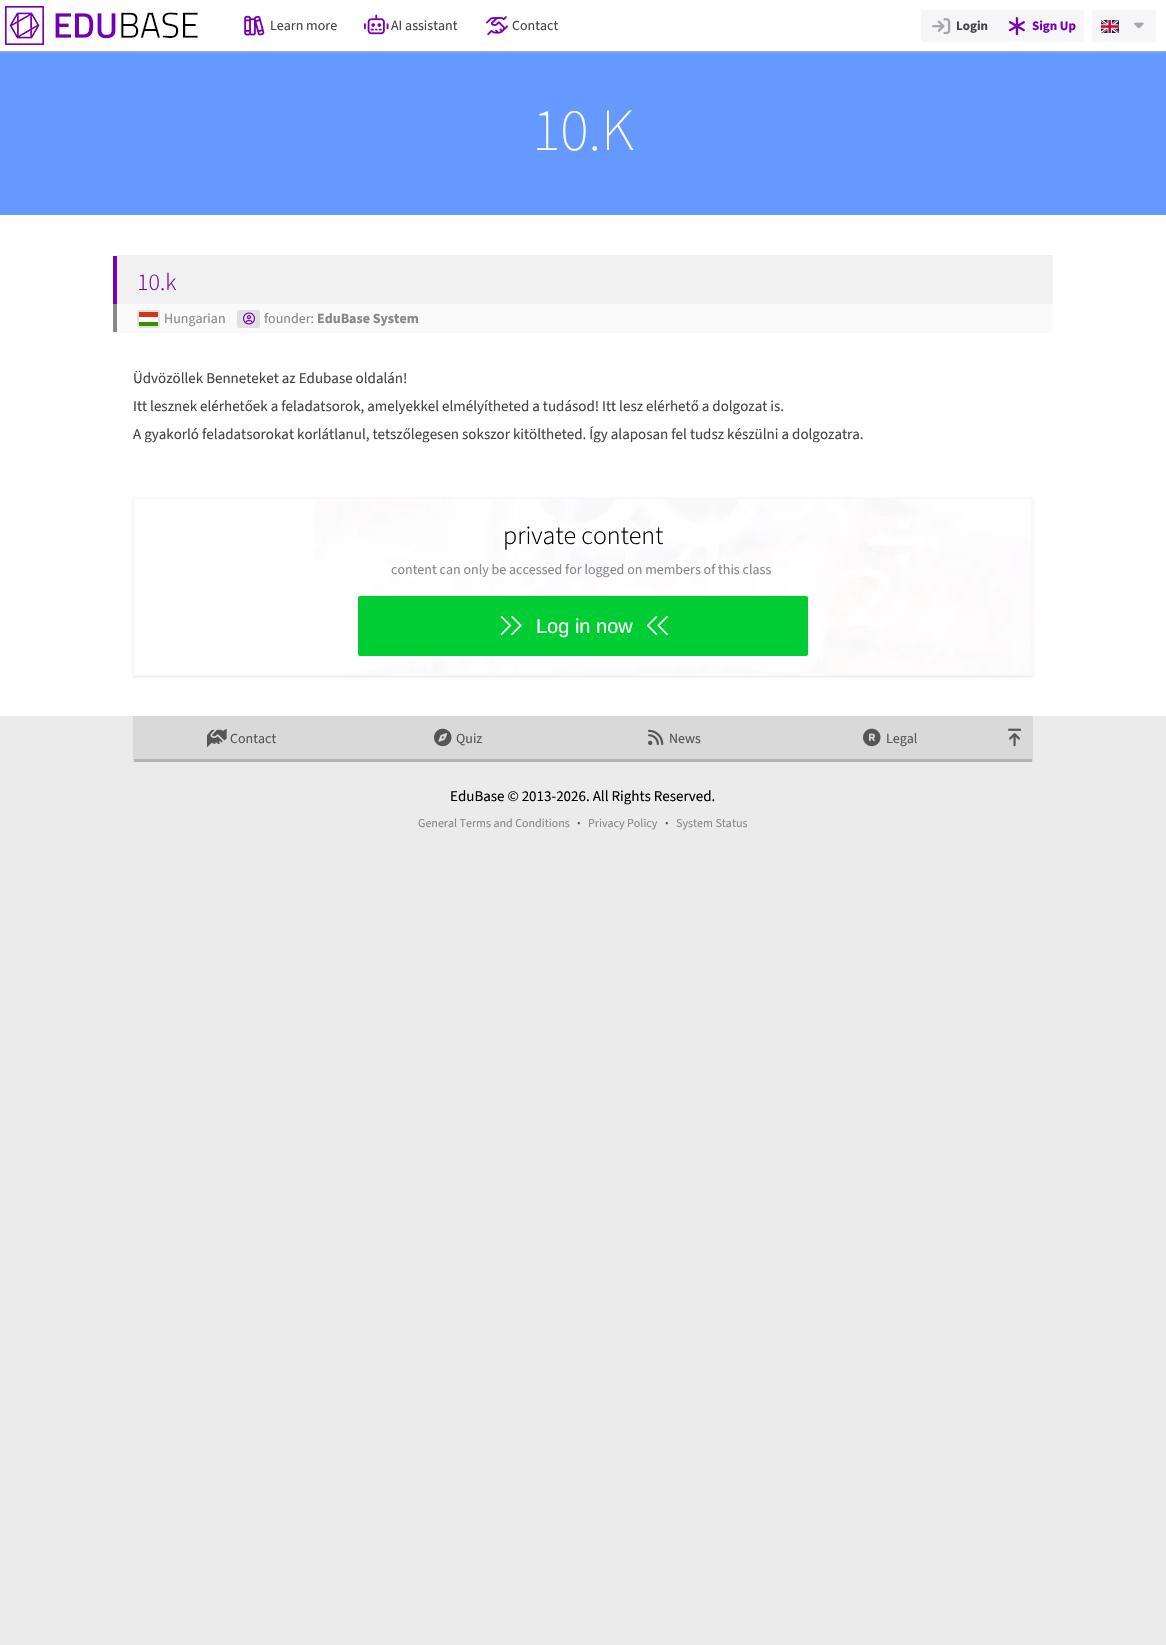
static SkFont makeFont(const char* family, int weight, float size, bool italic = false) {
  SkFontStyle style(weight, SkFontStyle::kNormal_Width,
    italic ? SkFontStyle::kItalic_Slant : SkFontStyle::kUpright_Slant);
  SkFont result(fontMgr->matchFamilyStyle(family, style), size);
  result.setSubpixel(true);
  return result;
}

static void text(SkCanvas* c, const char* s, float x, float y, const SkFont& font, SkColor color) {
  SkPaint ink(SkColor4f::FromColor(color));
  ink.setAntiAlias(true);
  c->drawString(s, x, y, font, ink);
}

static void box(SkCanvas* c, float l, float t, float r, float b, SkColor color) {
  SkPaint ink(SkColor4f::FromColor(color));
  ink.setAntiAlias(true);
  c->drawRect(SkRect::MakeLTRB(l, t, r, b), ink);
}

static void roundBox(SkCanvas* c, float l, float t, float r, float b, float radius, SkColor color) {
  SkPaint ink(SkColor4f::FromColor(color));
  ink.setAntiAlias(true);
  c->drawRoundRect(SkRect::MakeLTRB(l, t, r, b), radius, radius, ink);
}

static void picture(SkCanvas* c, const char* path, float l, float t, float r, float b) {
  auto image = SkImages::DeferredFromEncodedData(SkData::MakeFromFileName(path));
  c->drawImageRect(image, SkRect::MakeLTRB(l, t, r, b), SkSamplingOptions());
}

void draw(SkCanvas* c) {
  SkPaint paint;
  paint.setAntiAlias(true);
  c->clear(0xffebebeb);
  box(c, 0, 51, 1166, 215, 0xff6699ff);
  paint.setColor(0xffb3b3b3);
  paint.setMaskFilter(SkMaskFilter::MakeBlur(kNormal_SkBlurStyle, 1));
  c->drawRect(SkRect::MakeLTRB(0, 1, 1166, 52), paint);
  paint.setMaskFilter(nullptr);
  box(c, 0, 0, 1166, 51, 0xffffffff);
  picture(c, "img_01.png", 5, 6, 198, 45);
  picture(c, "img_02.png", 244, 15, 265, 36);
  SkFont face1 = makeFont("Source Sans 3", 400, 14);
  text(c, "Learn more", 270, 30, face1, 0xff444444);
  picture(c, "img_03.png", 364, 14, 389, 35);
  text(c, "AI assistant", 391, 30, face1, 0xff444444);
  picture(c, "img_04.png", 486, 16, 508, 36);
  text(c, "Contact", 512, 30, face1, 0xff444444);
  roundBox(c, 921, 10, 1084, 42, 2, 0xfff6f5f7);
  picture(c, "img_05.png", 932, 18, 951, 35);
  SkFont face2 = makeFont("Source Sans 3", 700, 13);
  text(c, "Login", 956, 30, face2, 0xff444444);
  picture(c, "img_06.png", 1009, 17, 1025, 36);
  text(c, "Sign Up", 1032, 30, face2, 0xff7700b5);
  roundBox(c, 1092, 10, 1156, 42, 2, 0xfff6f5f7);
  picture(c, "img_07.png", 1101, 20, 1119, 33);
  picture(c, "img_08.png", 1134, 22, 1144, 29);
  SkFont face3 = makeFont("Source Sans 3", 200, 60);
  text(c, "10.K", 532, 150, face3, 0xffffffff);
  box(c, 0, 215, 1166, 716, 0xffffffff);
  paint.setColor(0xfff1f1f1);
  c->drawPath(SkPathBuilder().moveTo(115, 255).lineTo(1053, 255).lineTo(1053, 310).lineTo(115, 310).cubicTo(114, 310, 113, 309, 113, 308).lineTo(113, 257).cubicTo(113, 256, 114, 255, 115, 255).close().detach(), paint);
  box(c, 113, 256, 117, 309, 0xff7700b5);
  SkFont face4 = makeFont("Source Sans 3", 300, 24);
  text(c, "10.k", 137, 290, face4, 0xff7700b5);
  paint.setColor(0xfffafafa);
  c->drawPath(SkPathBuilder().moveTo(113, 304).lineTo(1053, 304).lineTo(1053, 333).lineTo(115, 333).cubicTo(114, 333, 113, 332, 113, 331).close().detach(), paint);
  box(c, 113, 304, 117, 332, 0xff888888);
  box(c, 139, 317, 158, 322, 0xffffffff);
  box(c, 139, 322, 158, 326, 0xff388d00);
  box(c, 139, 312, 158, 317, 0xffd43516);
  paint.setStyle(SkPaint::kStroke_Style);
  paint.setStrokeWidth(2);
  paint.setColor(0xffe0e0e0);
  c->drawRoundRect(SkRect::MakeLTRB(138, 311, 159, 327), 1, 1, paint);
  text(c, "Hungarian", 164, 323, face1, 0xff888888);
  roundBox(c, 237, 310, 260, 328, 2, 0xffe0e0e0);
  picture(c, "img_09.png", 243, 312, 255, 325);
  text(c, "founder:", 264, 323, face1, 0xff888888);
  SkFont face5 = makeFont("Source Sans 3", 700, 14);
  text(c, "EduBase System", 317, 323, face5, 0xff888888);
  SkFont face6 = makeFont("Source Sans 3", 400, 15);
  text(c, "Üdvözöllek Benneteket az Edubase oldalán!", 133, 383, face6, 0xff444444);
  text(c, "Itt lesznek elérhetőek a feladatsorok, amelyekkel elmélyítheted a tudásod! Itt lesz elérhető a dolgozat is.", 133, 411, face6, 0xff444444);
  text(c, "A gyakorló feladatsorokat korlátlanul, tetszőlegesen sokszor kitöltheted. Így alaposan fel tudsz készülni a dolgozatra.", 133, 439, face6, 0xff444444);
  c->save();
  c->clipPath(SkPathBuilder(SkPathFillType::kEvenOdd).moveTo(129, 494).lineTo(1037, 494).lineTo(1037, 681).lineTo(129, 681).close().moveTo(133, 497).lineTo(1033, 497).lineTo(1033, 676).lineTo(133, 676).close().detach(), true);
  paint.setStyle(SkPaint::kFill_Style);
  paint.setColor(0xffe6e5e5);
  paint.setMaskFilter(SkMaskFilter::MakeBlur(kNormal_SkBlurStyle, 1));
  c->drawRect(SkRect::MakeLTRB(133, 498, 1033, 677), paint);
  paint.setMaskFilter(nullptr);
  c->restore();
  picture(c, "img_10.png", 314, 499, 1031, 674);
  paint.setStyle(SkPaint::kStroke_Style);
  paint.setColor(0xfffaf9f9);
  c->drawRect(SkRect::MakeLTRB(134, 498, 1032, 675), paint);
  SkFont face7 = makeFont("Source Sans 3", 300, 26);
  text(c, "private content", 503, 544, face7, 0xff000000);
  text(c, "content can only be accessed for logged on members of this class", 391, 574, face1, 0xff888888);
  roundBox(c, 358, 596, 808, 656, 2, 0xff00cc33);
  picture(c, "img_11.png", 500, 616, 522, 636);
  SkFont face8 = makeFont("Liberation Sans", 400, 20);
  text(c, "Log in now", 536, 633, face8, 0xffffffff);
  picture(c, "img_12.png", 646, 616, 668, 636);
  paint.setStyle(SkPaint::kFill_Style);
  paint.setColor(0xffd9d9d9);
  c->drawPath(SkPathBuilder().moveTo(133, 716).lineTo(349, 716).lineTo(349, 762).lineTo(135, 762).cubicTo(134, 762, 133, 761, 133, 760).close().detach(), paint);
  box(c, 134, 759, 997, 762, 0xffb3b3b3);
  picture(c, "img_13.png", 207, 728, 227, 748);
  text(c, "Contact", 230, 743, face1, 0xff555555);
  box(c, 349, 716, 997, 759, 0xffd9d9d9);
  picture(c, "img_14.png", 434, 728, 452, 747);
  text(c, "Quiz", 456, 743, face1, 0xff555555);
  picture(c, "img_15.png", 648, 729, 664, 746);
  text(c, "News", 669, 743, face1, 0xff555555);
  picture(c, "img_16.png", 863, 728, 881, 747);
  text(c, "Legal", 886, 743, face1, 0xff555555);
  c->drawPath(SkPathBuilder().moveTo(997, 716).lineTo(1033, 716).lineTo(1033, 760).cubicTo(1033, 761, 1032, 762, 1031, 762).lineTo(997, 762).close().detach(), paint);
  box(c, 997, 759, 1032, 762, 0xffb3b3b3);
  picture(c, "img_17.png", 1008, 728, 1022, 747);
  text(c, "EduBase © 2013-2026. All Rights Reserved.", 450, 801, face6, 0xff000000);
  SkFont face9 = makeFont("Source Sans 3", 400, 12);
  text(c, "General Terms and Conditions", 418, 827, face9, 0xff888888);
  SkFont face10 = makeFont("Source Sans 3", 700, 12);
  text(c, "·", 577, 827, face10, 0xff555555);
  text(c, "Privacy Policy", 588, 827, face9, 0xff888888);
  text(c, "·", 665, 827, face10, 0xff555555);
  text(c, "System Status", 676, 827, face9, 0xff888888);
}
